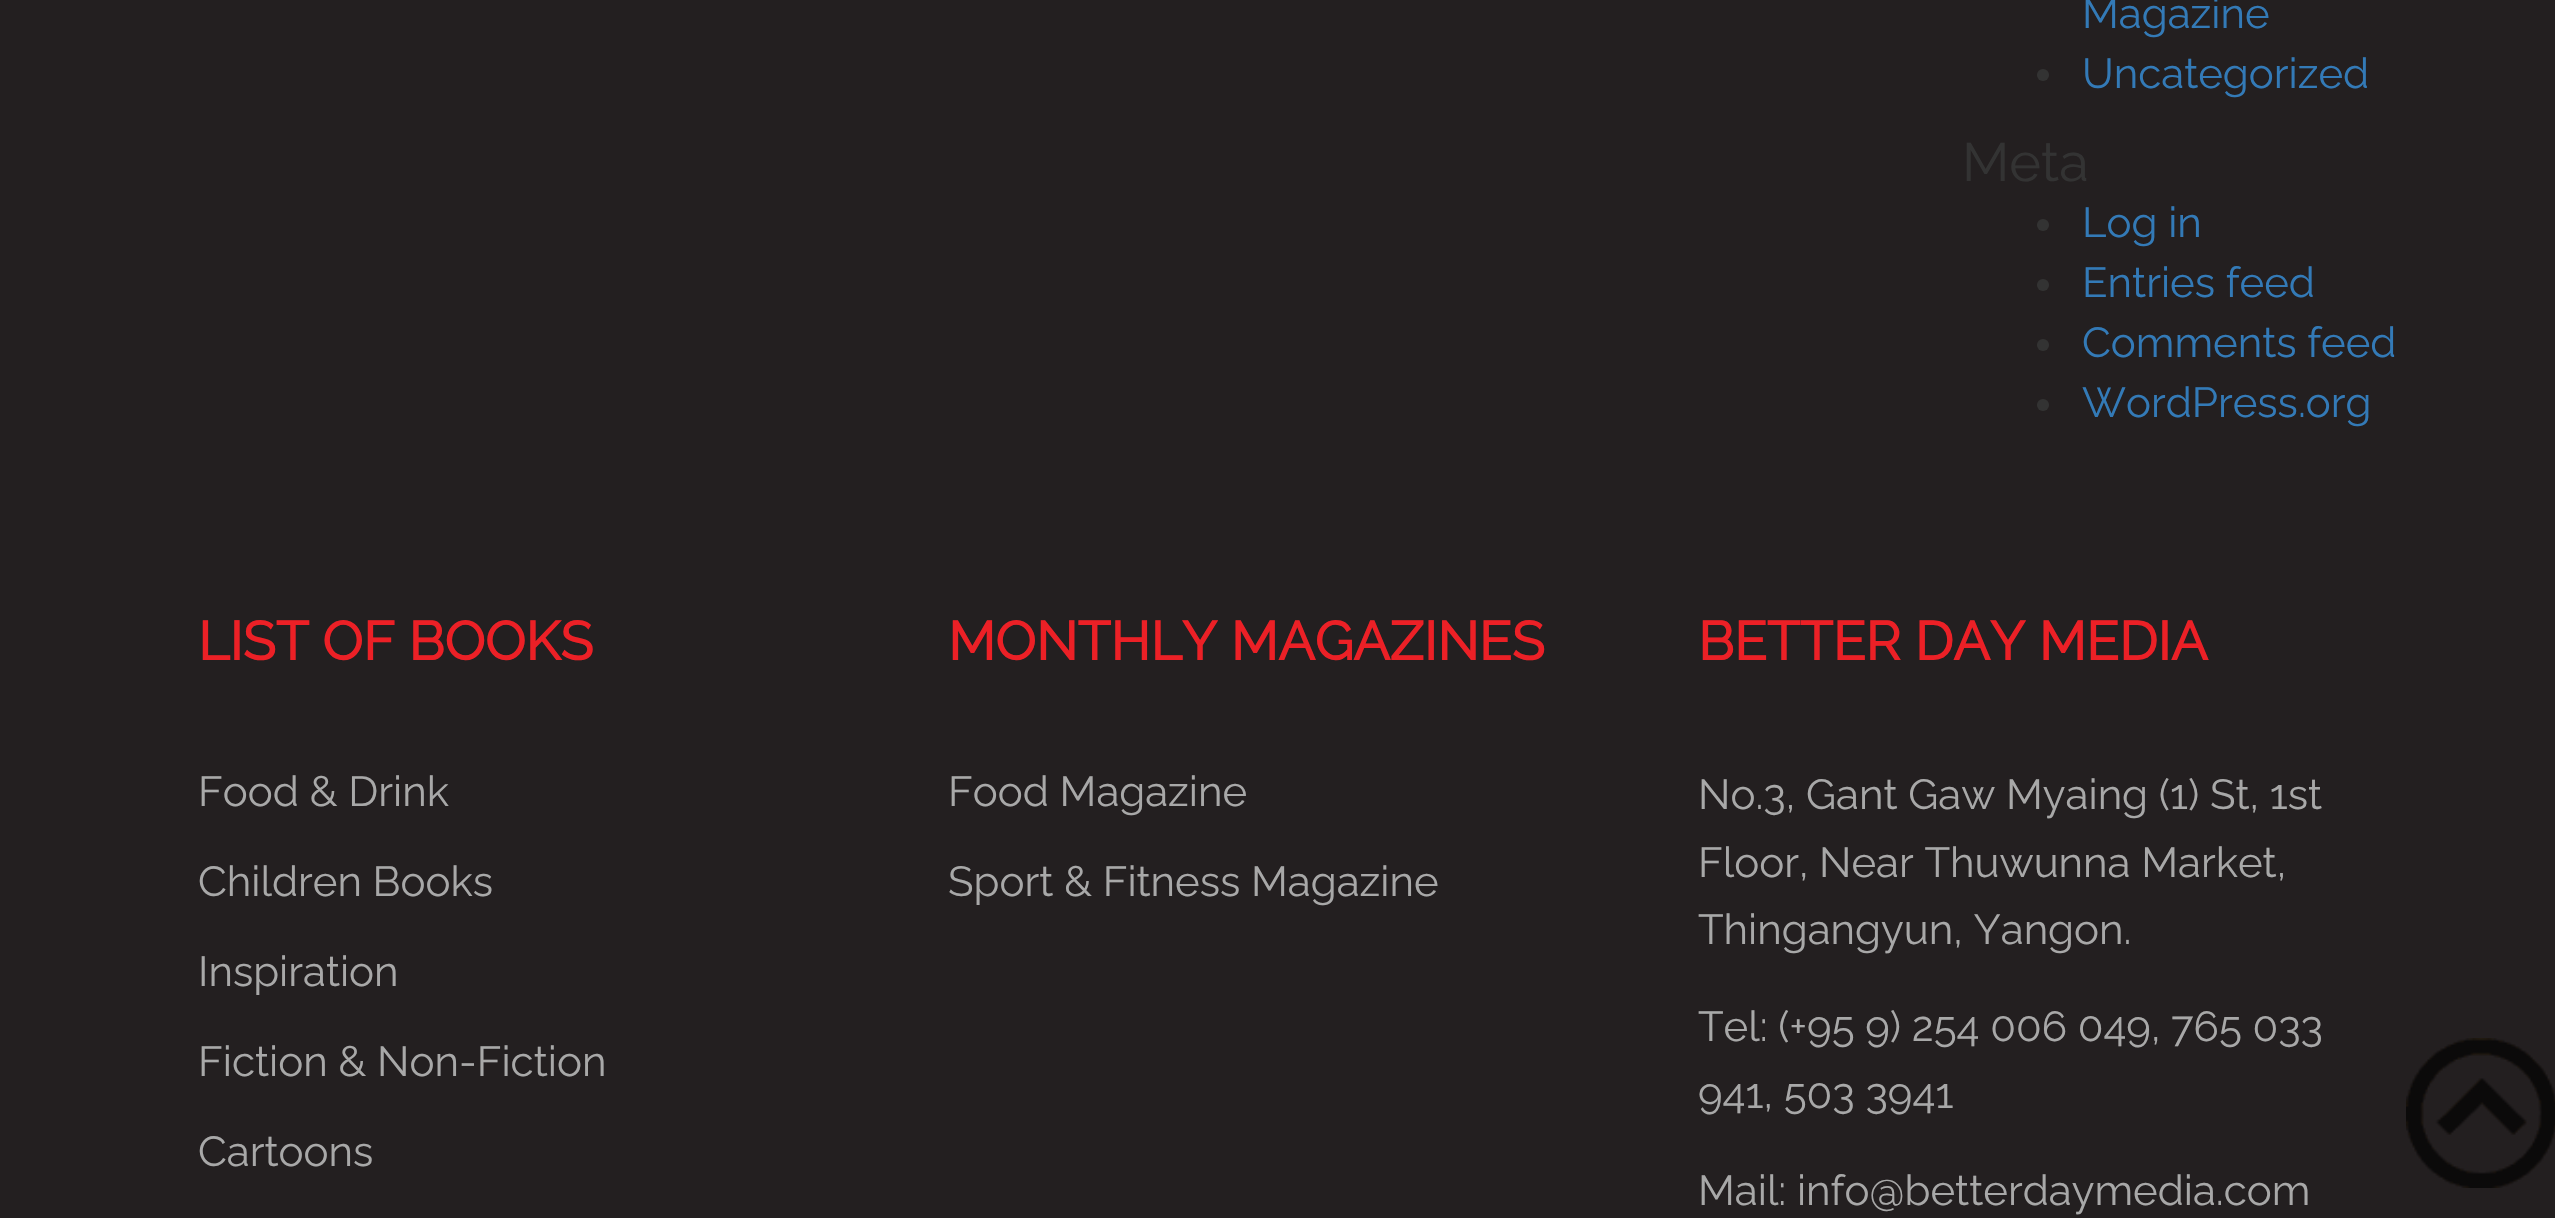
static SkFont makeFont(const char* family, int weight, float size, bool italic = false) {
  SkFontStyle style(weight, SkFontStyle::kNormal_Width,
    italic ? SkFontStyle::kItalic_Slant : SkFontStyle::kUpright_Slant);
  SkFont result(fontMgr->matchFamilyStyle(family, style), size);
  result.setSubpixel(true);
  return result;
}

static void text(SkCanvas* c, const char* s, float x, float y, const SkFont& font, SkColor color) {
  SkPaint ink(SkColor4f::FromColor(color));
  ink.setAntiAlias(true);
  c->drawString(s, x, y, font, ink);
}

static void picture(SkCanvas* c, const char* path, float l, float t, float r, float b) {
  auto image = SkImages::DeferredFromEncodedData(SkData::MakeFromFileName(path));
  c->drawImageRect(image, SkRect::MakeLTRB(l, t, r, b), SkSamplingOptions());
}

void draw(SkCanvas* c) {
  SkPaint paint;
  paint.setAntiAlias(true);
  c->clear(0xff231f20);
  SkFont face1 = makeFont("Raleway", 100, 42);
  text(c, "Magazine", 2082, 28, face1, 0xff337ab7);
  paint.setColor(0xff333333);
  c->drawCircle(2043, 75, 6, paint);
  text(c, "Uncategorized", 2082, 88, face1, 0xff337ab7);
  SkFont face2 = makeFont("Raleway", 100, 54);
  text(c, "Meta", 1962, 181, face2, 0xff333333);
  c->drawCircle(2043, 225, 6, paint);
  text(c, "Log in", 2082, 237, face1, 0xff337ab7);
  c->drawCircle(2043, 285, 6, paint);
  text(c, "Entries feed", 2082, 297, face1, 0xff337ab7);
  c->drawCircle(2043, 345, 6, paint);
  text(c, "Comments feed", 2082, 357, face1, 0xff337ab7);
  c->drawCircle(2043, 405, 6, paint);
  text(c, "WordPress.org", 2082, 417, face1, 0xff337ab7);
  SkFont face3 = makeFont("Raleway", 700, 54);
  text(c, "LIST OF BOOKS", 198, 660, face3, 0xffec2026);
  text(c, "Food & Drink", 198, 806, face1, 0xffa8a8a8);
  text(c, "Children Books", 198, 896, face1, 0xffa8a8a8);
  text(c, "Inspiration", 198, 986, face1, 0xffa8a8a8);
  text(c, "Fiction & Non-Fiction", 198, 1076, face1, 0xffa8a8a8);
  text(c, "Cartoons", 198, 1166, face1, 0xffa8a8a8);
  text(c, "MONTHLY MAGAZINES", 948, 660, face3, 0xffec2026);
  text(c, "Food Magazine", 948, 806, face1, 0xffa8a8a8);
  text(c, "Sport & Fitness Magazine", 948, 896, face1, 0xffa8a8a8);
  text(c, "BETTER DAY MEDIA", 1698, 660, face3, 0xffec2026);
  text(c, "No.3, Gant Gaw Myaing (1) St, 1st", 1698, 809, face1, 0xffa8a8a8);
  text(c, "Floor, Near Thuwunna Market,", 1698, 877, face1, 0xffa8a8a8);
  text(c, "Thingangyun, Yangon.", 1698, 944, face1, 0xffa8a8a8);
  text(c, "Tel: (+95 9) 254 006 049, 765 033", 1698, 1041, face1, 0xffa8a8a8);
  text(c, "941, 503 3941", 1698, 1108, face1, 0xffa8a8a8);
  text(c, "Mail: info@betterdaymedia.com", 1698, 1205, face1, 0xffa8a8a8);
  picture(c, "img_01.png", 2406, 1038, 2555, 1188);
}
